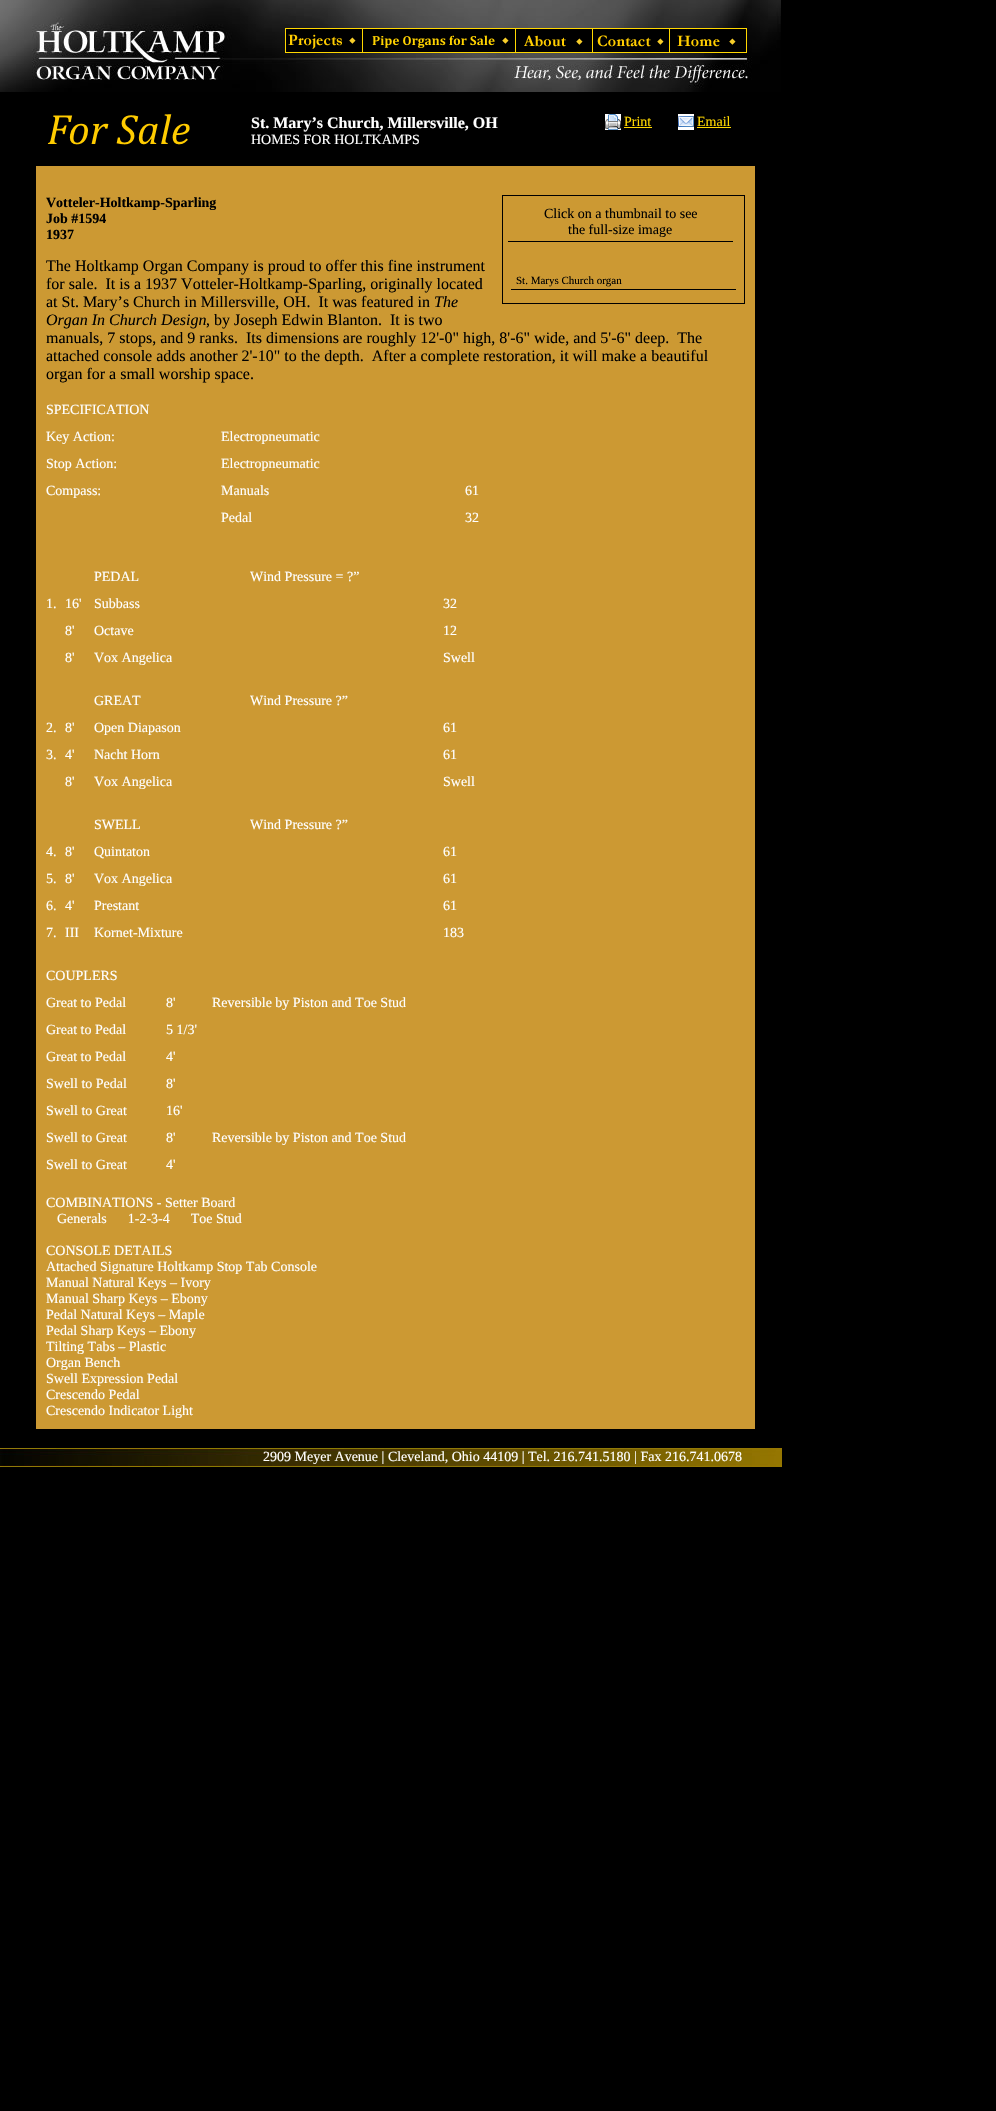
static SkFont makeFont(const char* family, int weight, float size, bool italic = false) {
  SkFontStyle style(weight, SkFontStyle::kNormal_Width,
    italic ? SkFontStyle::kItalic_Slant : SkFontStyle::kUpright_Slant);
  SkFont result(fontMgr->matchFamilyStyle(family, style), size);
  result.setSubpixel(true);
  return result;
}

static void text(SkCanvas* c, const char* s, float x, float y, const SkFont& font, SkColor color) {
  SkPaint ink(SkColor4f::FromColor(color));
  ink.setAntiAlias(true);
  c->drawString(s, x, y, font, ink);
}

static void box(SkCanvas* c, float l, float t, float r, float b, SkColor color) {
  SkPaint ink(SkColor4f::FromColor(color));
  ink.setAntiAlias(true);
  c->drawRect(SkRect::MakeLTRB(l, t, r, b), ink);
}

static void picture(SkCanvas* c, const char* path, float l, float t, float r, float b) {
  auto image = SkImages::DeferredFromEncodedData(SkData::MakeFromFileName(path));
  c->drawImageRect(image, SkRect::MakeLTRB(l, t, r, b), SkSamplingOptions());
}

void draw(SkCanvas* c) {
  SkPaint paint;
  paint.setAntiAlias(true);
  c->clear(0xff000000);
  picture(c, "img_06.png", 0, 0, 781, 92);
  box(c, 286, 29, 362, 52, 0xff000000);
  box(c, 285, 28, 669, 29, 0xffffd700);
  box(c, 285, 52, 669, 53, 0xffffd700);
  box(c, 285, 28, 286, 53, 0xffffd700);
  picture(c, "img_01.png", 288, 34, 356, 49);
  box(c, 363, 29, 515, 52, 0xff000000);
  box(c, 362, 28, 363, 53, 0xffffd700);
  picture(c, "img_02.png", 372, 35, 509, 48);
  box(c, 516, 29, 592, 52, 0xff000000);
  box(c, 515, 28, 516, 53, 0xffffd700);
  picture(c, "img_03.png", 524, 35, 583, 47);
  box(c, 593, 29, 669, 52, 0xff000000);
  box(c, 592, 28, 593, 53, 0xffffd700);
  picture(c, "img_04.png", 597, 35, 664, 47);
  paint.setColor(0xff000000);
  c->drawRect(SkRect::MakeLTRB(669.5f, 28.5f, 746.5f, 52.5f), paint);
  paint.setStyle(SkPaint::kStroke_Style);
  paint.setStrokeWidth(1);
  paint.setColor(0xffffd700);
  c->drawRect(SkRect::MakeLTRB(669.5f, 28.5f, 746.5f, 52.5f), paint);
  picture(c, "img_05.png", 677, 35, 736, 47);
  picture(c, "img_07.png", 47, 114, 190, 145);
  SkFont face1 = makeFont("Liberation Serif", 700, 16);
  text(c, "St. Mary’s Church, Millersville, OH", 251, 128, face1, 0xffffffff);
  SkFont face2 = makeFont("Liberation Serif", 400, 14);
  text(c, "HOMES FOR HOLTKAMPS", 251, 144, face2, 0xffffffff);
  picture(c, "img_08.png", 605, 114, 621, 130);
  text(c, "Print", 624, 126, face2, 0xffffd700);
  box(c, 624, 127, 652, 128, 0xffffd700);
  picture(c, "img_09.png", 678, 114, 694, 130);
  text(c, "Email", 697, 126, face2, 0xffffd700);
  box(c, 697, 127, 731, 128, 0xffffd700);
  box(c, 36, 166, 755, 1429, 0xffcc9933);
  SkFont face3 = makeFont("Liberation Serif", 700, 14);
  text(c, "Votteler-Holtkamp-Sparling", 46, 207, face3, 0xff000000);
  text(c, "Job #1594", 46, 223, face3, 0xff000000);
  text(c, "1937", 46, 239, face3, 0xff000000);
  SkFont face4 = makeFont("Liberation Serif", 400, 16);
  text(c, "The Holtkamp Organ Company is proud to offer this fine instrument", 46, 271, face4, 0xff000000);
  text(c, "for sale.  It is a 1937 Votteler-Holtkamp-Sparling, originally located", 46, 289, face4, 0xff000000);
  text(c, "at St. Mary’s Church in Millersville, OH.  It was featured in", 46, 307, face4, 0xff000000);
  SkFont face5 = makeFont("Liberation Serif", 400, 16, true);
  text(c, "The", 434, 307, face5, 0xff000000);
  text(c, "Organ In Church Design", 46, 325, face5, 0xff000000);
  text(c, ", by Joseph Edwin Blanton.  It is two", 206, 325, face4, 0xff000000);
  text(c, "manuals, 7 stops, and 9 ranks.  Its dimensions are roughly 12'-0\" high, 8'-6\" wide, and 5'-6\" deep.  The", 46, 343, face4, 0xff000000);
  text(c, "attached console adds another 2'-10\" to the depth.  After a complete restoration, it will make a beautiful", 46, 361, face4, 0xff000000);
  text(c, "organ for a small worship space.", 46, 379, face4, 0xff000000);
  text(c, "SPECIFICATION", 46, 414, face2, 0xffffffff);
  text(c, "Key Action:", 46, 441, face2, 0xffffffff);
  text(c, "Electropneumatic", 221, 441, face2, 0xffffffff);
  text(c, "Stop Action:", 46, 468, face2, 0xffffffff);
  text(c, "Electropneumatic", 221, 468, face2, 0xffffffff);
  text(c, "Compass:", 46, 495, face2, 0xffffffff);
  text(c, "Manuals", 221, 495, face2, 0xffffffff);
  text(c, "61", 465, 495, face2, 0xffffffff);
  text(c, "Pedal", 221, 522, face2, 0xffffffff);
  text(c, "32", 465, 522, face2, 0xffffffff);
  text(c, "PEDAL", 94, 581, face2, 0xffffffff);
  text(c, "Wind Pressure = ?”", 250, 581, face2, 0xffffffff);
  text(c, "1.", 46, 608, face2, 0xffffffff);
  text(c, "16'", 65, 608, face2, 0xffffffff);
  text(c, "Subbass", 94, 608, face2, 0xffffffff);
  text(c, "32", 443, 608, face2, 0xffffffff);
  text(c, "8'", 65, 635, face2, 0xffffffff);
  text(c, "Octave", 94, 635, face2, 0xffffffff);
  text(c, "12", 443, 635, face2, 0xffffffff);
  text(c, "8'", 65, 662, face2, 0xffffffff);
  text(c, "Vox Angelica", 94, 662, face2, 0xffffffff);
  text(c, "Swell", 443, 662, face2, 0xffffffff);
  text(c, "GREAT", 94, 705, face2, 0xffffffff);
  text(c, "Wind Pressure ?”", 250, 705, face2, 0xffffffff);
  text(c, "2.", 46, 732, face2, 0xffffffff);
  text(c, "8'", 65, 732, face2, 0xffffffff);
  text(c, "Open Diapason", 94, 732, face2, 0xffffffff);
  text(c, "61", 443, 732, face2, 0xffffffff);
  text(c, "3.", 46, 759, face2, 0xffffffff);
  text(c, "4'", 65, 759, face2, 0xffffffff);
  text(c, "Nacht Horn", 94, 759, face2, 0xffffffff);
  text(c, "61", 443, 759, face2, 0xffffffff);
  text(c, "8'", 65, 786, face2, 0xffffffff);
  text(c, "Vox Angelica", 94, 786, face2, 0xffffffff);
  text(c, "Swell", 443, 786, face2, 0xffffffff);
  text(c, "SWELL", 94, 829, face2, 0xffffffff);
  text(c, "Wind Pressure ?”", 250, 829, face2, 0xffffffff);
  text(c, "4.", 46, 856, face2, 0xffffffff);
  text(c, "8'", 65, 856, face2, 0xffffffff);
  text(c, "Quintaton", 94, 856, face2, 0xffffffff);
  text(c, "61", 443, 856, face2, 0xffffffff);
  text(c, "5.", 46, 883, face2, 0xffffffff);
  text(c, "8'", 65, 883, face2, 0xffffffff);
  text(c, "Vox Angelica", 94, 883, face2, 0xffffffff);
  text(c, "61", 443, 883, face2, 0xffffffff);
  text(c, "6.", 46, 910, face2, 0xffffffff);
  text(c, "4'", 65, 910, face2, 0xffffffff);
  text(c, "Prestant", 94, 910, face2, 0xffffffff);
  text(c, "61", 443, 910, face2, 0xffffffff);
  text(c, "7.", 46, 937, face2, 0xffffffff);
  text(c, "III", 65, 937, face2, 0xffffffff);
  text(c, "Kornet-Mixture", 94, 937, face2, 0xffffffff);
  text(c, "183", 443, 937, face2, 0xffffffff);
  text(c, "COUPLERS", 46, 980, face2, 0xffffffff);
  text(c, "Great to Pedal", 46, 1007, face2, 0xffffffff);
  text(c, "8'", 166, 1007, face2, 0xffffffff);
  text(c, "Reversible by Piston and Toe Stud", 212, 1007, face2, 0xffffffff);
  text(c, "Great to Pedal", 46, 1034, face2, 0xffffffff);
  text(c, "5 1/3'", 166, 1034, face2, 0xffffffff);
  text(c, "Great to Pedal", 46, 1061, face2, 0xffffffff);
  text(c, "4'", 166, 1061, face2, 0xffffffff);
  text(c, "Swell to Pedal", 46, 1088, face2, 0xffffffff);
  text(c, "8'", 166, 1088, face2, 0xffffffff);
  text(c, "Swell to Great", 46, 1115, face2, 0xffffffff);
  text(c, "16'", 166, 1115, face2, 0xffffffff);
  text(c, "Swell to Great", 46, 1142, face2, 0xffffffff);
  text(c, "8'", 166, 1142, face2, 0xffffffff);
  text(c, "Reversible by Piston and Toe Stud", 212, 1142, face2, 0xffffffff);
  text(c, "Swell to Great", 46, 1169, face2, 0xffffffff);
  text(c, "4'", 166, 1169, face2, 0xffffffff);
  text(c, "COMBINATIONS - Setter Board", 46, 1207, face2, 0xffffffff);
  text(c, "Generals      1-2-3-4      Toe Stud", 57, 1223, face2, 0xffffffff);
  text(c, "CONSOLE DETAILS", 46, 1255, face2, 0xffffffff);
  text(c, "Attached Signature Holtkamp Stop Tab Console", 46, 1271, face2, 0xffffffff);
  text(c, "Manual Natural Keys – Ivory", 46, 1287, face2, 0xffffffff);
  text(c, "Manual Sharp Keys – Ebony", 46, 1303, face2, 0xffffffff);
  text(c, "Pedal Natural Keys – Maple", 46, 1319, face2, 0xffffffff);
  text(c, "Pedal Sharp Keys – Ebony", 46, 1335, face2, 0xffffffff);
  text(c, "Tilting Tabs – Plastic", 46, 1351, face2, 0xffffffff);
  text(c, "Organ Bench", 46, 1367, face2, 0xffffffff);
  text(c, "Swell Expression Pedal", 46, 1383, face2, 0xffffffff);
  text(c, "Crescendo Pedal", 46, 1399, face2, 0xffffffff);
  text(c, "Crescendo Indicator Light", 46, 1415, face2, 0xffffffff);
  paint.setColor(0xff000000);
  c->drawRect(SkRect::MakeLTRB(502.5f, 195.5f, 744.5f, 303.5f), paint);
  box(c, 508, 241, 733, 242, 0xff000000);
  text(c, "Click on a thumbnail to see", 544, 218, face2, 0xff000000);
  text(c, "the full-size image", 568, 234, face2, 0xff000000);
  box(c, 511, 289, 736, 290, 0xff000000);
  SkFont face6 = makeFont("Liberation Serif", 400, 11);
  text(c, "St. Marys Church organ", 516, 284, face6, 0xff000000);
  picture(c, "img_10.png", 0, 1448, 782, 1467);
  text(c, "2909 Meyer Avenue | Cleveland, Ohio 44109 | Tel. 216.741.5180 | Fax 216.741.0678", 263, 1461, face2, 0xffffffff);
}
